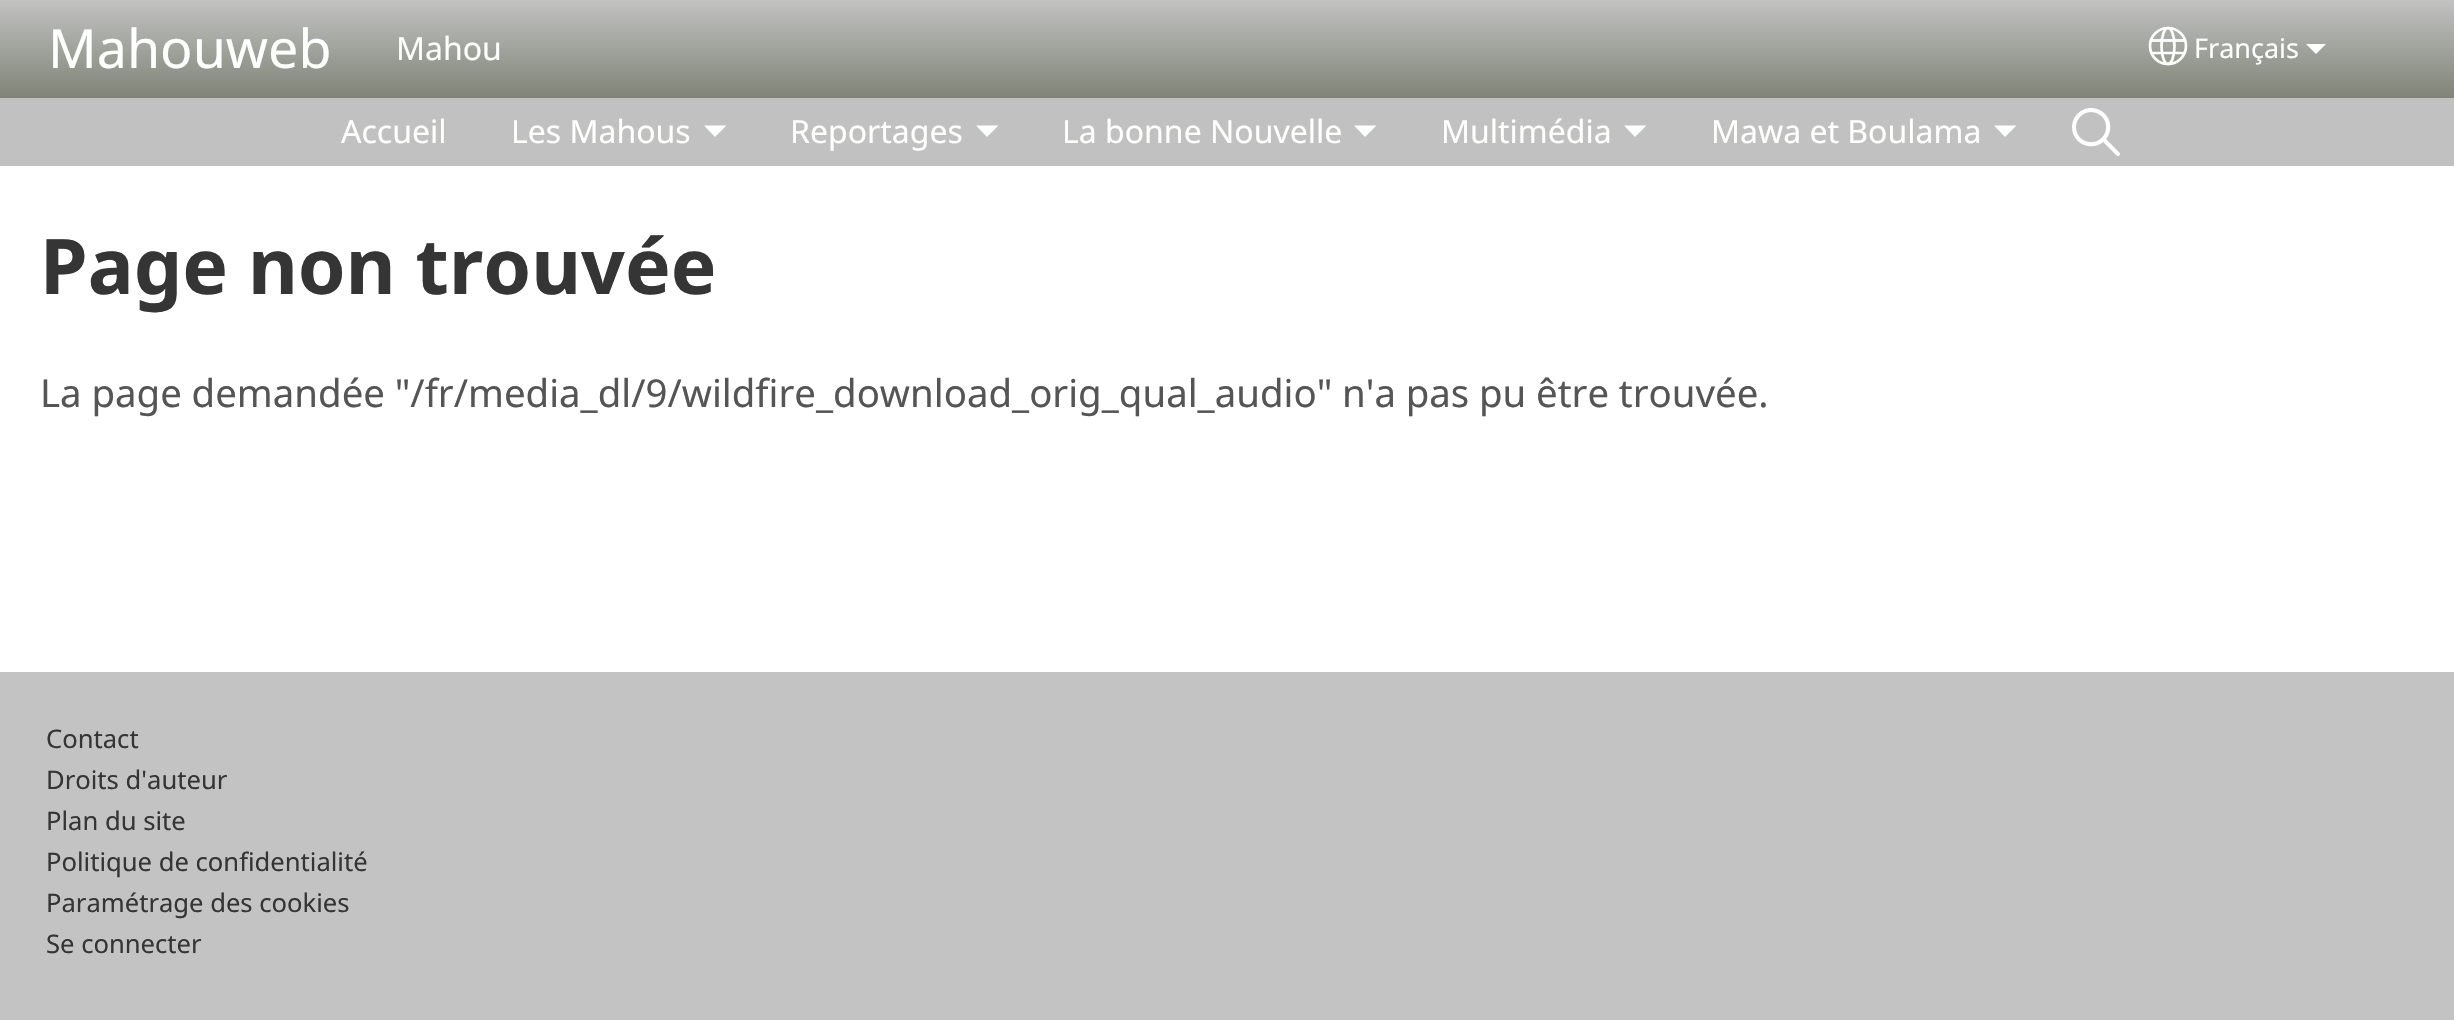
static SkFont makeFont(const char* family, int weight, float size, bool italic = false) {
  SkFontStyle style(weight, SkFontStyle::kNormal_Width,
    italic ? SkFontStyle::kItalic_Slant : SkFontStyle::kUpright_Slant);
  SkFont result(fontMgr->matchFamilyStyle(family, style), size);
  result.setSubpixel(true);
  return result;
}

static void text(SkCanvas* c, const char* s, float x, float y, const SkFont& font, SkColor color) {
  SkPaint ink(SkColor4f::FromColor(color));
  ink.setAntiAlias(true);
  c->drawString(s, x, y, font, ink);
}

static void spacedText(SkCanvas* c, const char* s, float x, float y, const SkFont& font, const SkPaint& ink, float letter, float word) {
  std::vector<SkGlyphID> glyphs(font.countText(s, strlen(s), SkTextEncoding::kUTF8));
  std::vector<float> xs(glyphs.size());
  font.textToGlyphs(s, strlen(s), SkTextEncoding::kUTF8, glyphs);
  font.getXPos(glyphs, xs, x);
  float extra = 0;
  for (size_t i = 0; i < glyphs.size(); i++) {
    xs[i] += extra;
    extra += letter + word * (glyphs[i] == font.unicharToGlyph(' '));
  }
  c->drawTextBlob(SkTextBlob::MakeFromPosHGlyphs(glyphs, xs, y, font), 0, 0, ink);
}

static void box(SkCanvas* c, float l, float t, float r, float b, SkColor color) {
  SkPaint ink(SkColor4f::FromColor(color));
  ink.setAntiAlias(true);
  c->drawRect(SkRect::MakeLTRB(l, t, r, b), ink);
}

static void picture(SkCanvas* c, const char* path, float l, float t, float r, float b) {
  auto image = SkImages::DeferredFromEncodedData(SkData::MakeFromFileName(path));
  c->drawImageRect(image, SkRect::MakeLTRB(l, t, r, b), SkSamplingOptions());
}

void draw(SkCanvas* c) {
  SkPaint paint;
  paint.setAntiAlias(true);
  c->clear(0xffffffff);
  {
    const SkColor colors[] = {0xffc2c2c2, 0xff7f8477};
    const float stops[] = {0, 1};
    const SkPoint ends[] = {{1227, 0}, {1227, 98}};
    paint.setShader(SkGradientShader::MakeLinear(ends, colors, stops, 2, SkTileMode::kClamp));
    paint.setAlpha(255);
  }
  c->drawRect(SkRect::MakeLTRB(0, 0, 2454, 98), paint);
  SkFont face1 = makeFont("Noto Sans", 400, 53.75f);
  text(c, "Mahouweb", 48, 68, face1, 0xfffffffe);
  SkFont face2 = makeFont("Noto Sans", 400, 32);
  text(c, "Mahou", 396, 60, face2, 0xfffffffe);
  paint.setStyle(SkPaint::kStroke_Style);
  paint.setStrokeWidth(2.7f);
  paint.setShader(nullptr);
  paint.setColor(0xfffffffe);
  c->drawCircle(2168, 46, 18, paint);
  c->drawOval(SkRect::MakeLTRB(2161.5f, 28, 2174.5f, 64), paint);
  box(c, 2151, 39, 2185, 42, 0xe6fffffe);
  c->drawPath(SkPathBuilder().moveTo(2150.5f, 53).lineTo(2185, 53).detach(), paint);
  SkFont face3 = makeFont("Noto Sans", 400, 27);
  text(c, "Français", 2194, 58, face3, 0xfffffffe);
  paint.setStyle(SkPaint::kFill_Style);
  c->drawPath(SkPathBuilder().moveTo(2306, 44).lineTo(2326, 44).lineTo(2316, 54).close().detach(), paint);
  box(c, 0, 98, 2454, 166, 0xffc1c1c1);
  text(c, "Accueil", 341, 143, face2, 0xfffffffe);
  text(c, "Les Mahous", 511, 143, face2, 0xfffffffe);
  paint.setColor(0xfffeffff);
  c->drawPath(SkPathBuilder().moveTo(704, 125.5f).lineTo(726.5f, 125.5f).lineTo(715, 137).close().detach(), paint);
  text(c, "Reportages", 790, 143, face2, 0xfffffffe);
  c->drawPath(SkPathBuilder().moveTo(976, 125.5f).lineTo(998.5f, 125.5f).lineTo(987, 137).close().detach(), paint);
  text(c, "La bonne Nouvelle", 1062, 143, face2, 0xfffffffe);
  c->drawPath(SkPathBuilder().moveTo(1354, 125.5f).lineTo(1376.5f, 125.5f).lineTo(1365, 137).close().detach(), paint);
  text(c, "Multimédia", 1441, 143, face2, 0xfffffffe);
  c->drawPath(SkPathBuilder().moveTo(1624, 125.5f).lineTo(1646.5f, 125.5f).lineTo(1635, 137).close().detach(), paint);
  text(c, "Mawa et Boulama", 1711, 143, face2, 0xfffffffe);
  c->drawPath(SkPathBuilder().moveTo(1994, 125.5f).lineTo(2016.5f, 125.5f).lineTo(2005, 137).close().detach(), paint);
  picture(c, "img_01.png", 2072, 108, 2120, 156);
  SkFont face4 = makeFont("Noto Sans", 700, 76.75f);
  text(c, "Page non trouvée", 40, 294, face4, 0xff353535);
  SkFont face5 = makeFont("Noto Sans", 400, 38.4f);
  paint.setColor(0xff555555);
  spacedText(c, "La page demandée \"/fr/media_dl/9/wildfire_download_orig_qual_audio\" n'a pas pu être trouvée.", 40, 407, face5, paint, 0, -0.25f);
  box(c, 0, 672, 2454, 1020, 0xffc3c3c3);
  SkFont face6 = makeFont("Noto Sans", 400, 25.6f);
  text(c, "Contact", 46, 748, face6, 0xff353535);
  text(c, "Droits d'auteur", 46, 789, face6, 0xff353535);
  text(c, "Plan du site", 46, 830, face6, 0xff353535);
  text(c, "Politique de confidentialité", 46, 871, face6, 0xff353535);
  text(c, "Paramétrage des cookies", 46, 912, face6, 0xff353535);
  text(c, "Se connecter", 46, 953, face6, 0xff353535);
}
